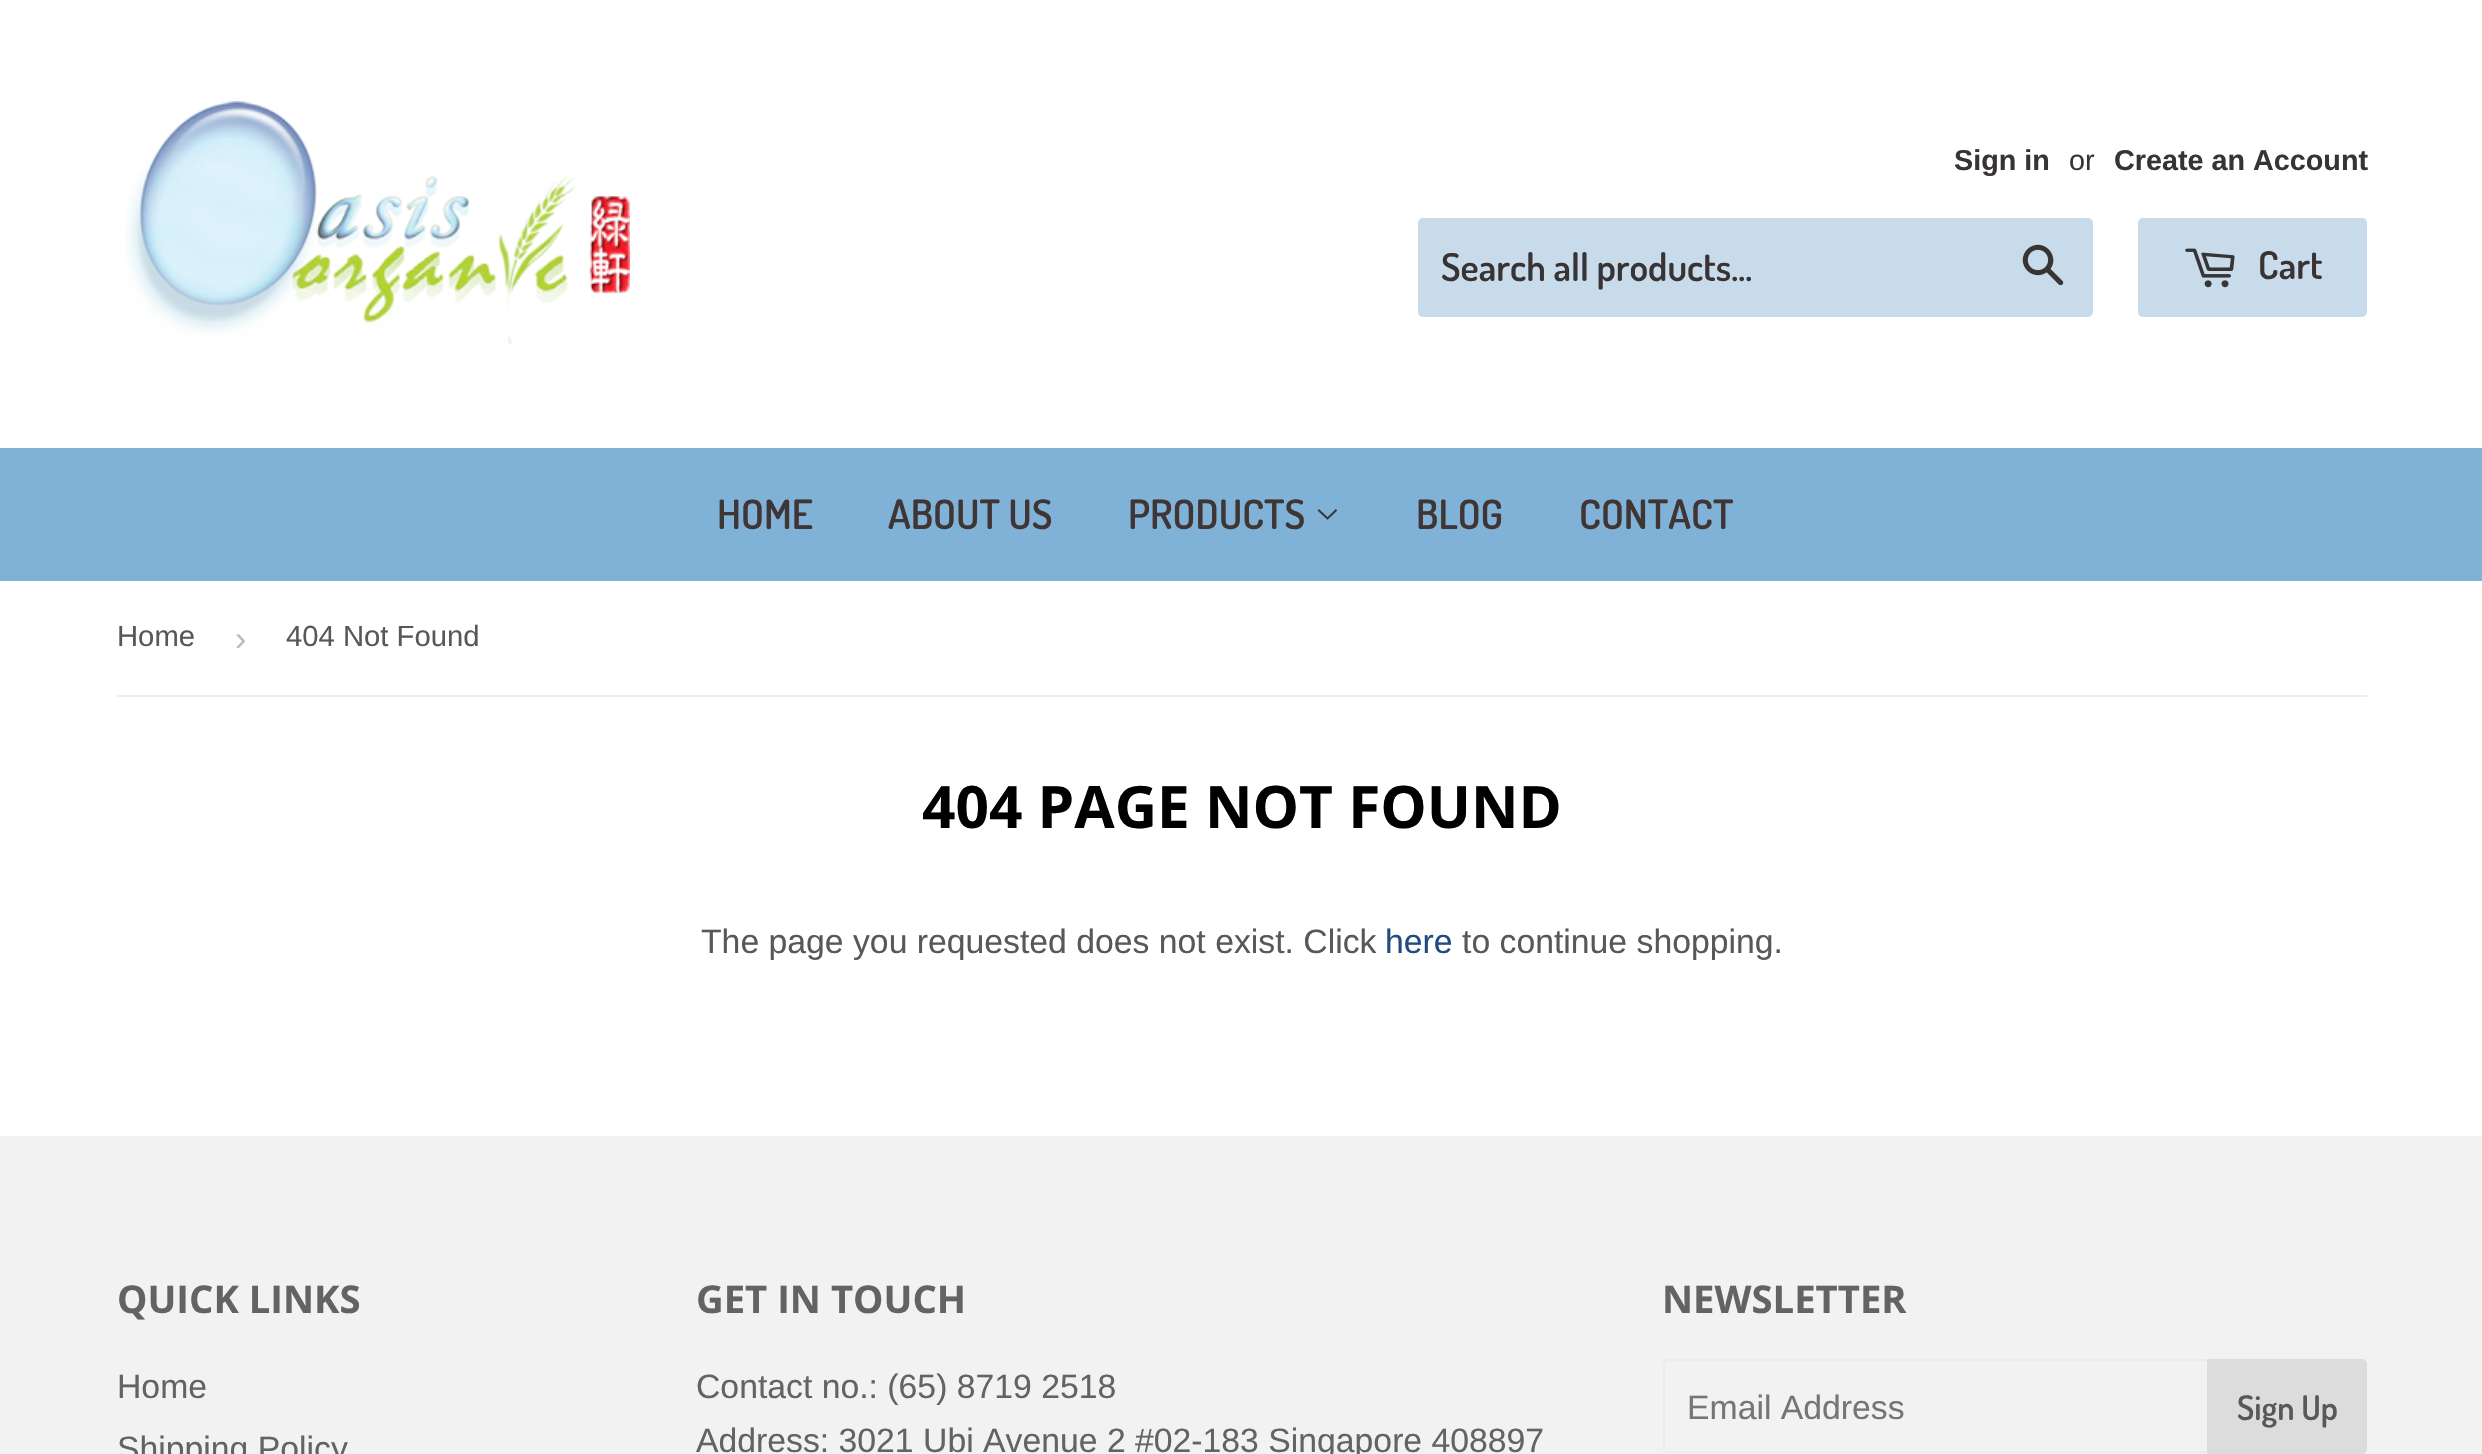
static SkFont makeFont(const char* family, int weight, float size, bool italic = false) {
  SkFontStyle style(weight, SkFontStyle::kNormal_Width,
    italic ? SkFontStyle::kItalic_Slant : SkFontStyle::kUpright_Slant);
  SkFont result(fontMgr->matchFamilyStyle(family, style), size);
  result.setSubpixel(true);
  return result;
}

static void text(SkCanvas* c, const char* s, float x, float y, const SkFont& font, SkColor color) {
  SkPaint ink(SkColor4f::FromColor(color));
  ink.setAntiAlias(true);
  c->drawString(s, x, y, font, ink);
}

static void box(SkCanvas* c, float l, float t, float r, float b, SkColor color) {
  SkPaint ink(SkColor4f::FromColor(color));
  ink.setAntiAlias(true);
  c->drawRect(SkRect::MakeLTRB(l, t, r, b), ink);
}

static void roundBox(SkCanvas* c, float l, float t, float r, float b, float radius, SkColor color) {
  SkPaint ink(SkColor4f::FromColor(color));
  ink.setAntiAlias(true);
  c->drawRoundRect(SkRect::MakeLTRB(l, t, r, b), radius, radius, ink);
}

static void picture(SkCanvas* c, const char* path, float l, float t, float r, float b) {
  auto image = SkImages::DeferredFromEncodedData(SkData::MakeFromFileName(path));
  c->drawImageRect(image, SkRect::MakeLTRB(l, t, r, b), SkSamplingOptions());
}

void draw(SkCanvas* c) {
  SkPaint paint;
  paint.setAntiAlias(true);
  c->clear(0xffffffff);
  picture(c, "img_01.png", 125, 101, 630, 345);
  SkFont face1 = makeFont("Liberation Sans", 700, 28.75f);
  text(c, "Sign in", 1954, 170, face1, 0xff393434);
  SkFont face2 = makeFont("Liberation Sans", 400, 28.75f);
  text(c, "or", 2069, 170, face2, 0xff393434);
  text(c, "Create an Account", 2114, 170, face1, 0xff393434);
  roundBox(c, 1418, 218, 2093, 317, 5, 0xffc8dbeb);
  SkFont face3 = makeFont("Dosis", 600, 38.25f);
  text(c, "Search all products...", 1441, 281, face3, 0xff393434);
  picture(c, "img_02.png", 2022, 244, 2064, 286);
  roundBox(c, 2138, 218, 2367, 317, 5, 0xffc8dbeb);
  picture(c, "img_03.png", 2185, 248, 2235, 288);
  text(c, "Cart", 2258, 279, face3, 0xff393434);
  box(c, 0, 448, 2482, 581, 0xff7fb2d6);
  SkFont face4 = makeFont("Dosis", 600, 40.5f);
  text(c, "HOME", 717, 529, face4, 0xff403535);
  text(c, "ABOUT US", 888, 529, face4, 0xff403535);
  text(c, "PRODUCTS", 1128, 529, face4, 0xff403535);
  picture(c, "img_04.png", 1317, 509, 1337, 520);
  text(c, "BLOG", 1416, 529, face4, 0xff403535);
  text(c, "CONTACT", 1579, 529, face4, 0xff403535);
  box(c, 117, 695, 2367, 697, 0xffececec);
  SkFont face5 = makeFont("Liberation Sans", 400, 29.25f);
  text(c, "Home", 117, 646, face5, 0xff585858);
  SkFont face6 = makeFont("Liberation Sans", 400, 33.75f);
  text(c, "›", 235, 650, face6, 0xffbbbbbb);
  text(c, "404 Not Found", 286, 646, face5, 0xff585858);
  SkFont face7 = makeFont("Open Sans", 700, 58.5f);
  text(c, "404 PAGE NOT FOUND", 922, 828, face7, 0xff000000);
  text(c, "The page you requested does not exist. Click", 701, 953, face6, 0xff585858);
  text(c, "here", 1385, 953, face6, 0xff204a80);
  text(c, "to continue shopping.", 1462, 953, face6, 0xff585858);
  box(c, 0, 1136, 2482, 1454, 0xfff2f2f2);
  SkFont face8 = makeFont("Open Sans", 700, 38.25f);
  text(c, "QUICK LINKS", 117, 1313, face8, 0xff636363);
  text(c, "Home", 117, 1398, face6, 0xff636363);
  text(c, "Shipping Policy", 117, 1460, face6, 0xff636363);
  text(c, "GET IN TOUCH", 696, 1313, face8, 0xff636363);
  text(c, "Contact no.: (65) 8719 2518", 696, 1398, face6, 0xff636363);
  text(c, "Address: 3021 Ubi Avenue 2 #02-183 Singapore 408897", 696, 1452, face6, 0xff636363);
  text(c, "NEWSLETTER", 1662, 1313, face8, 0xff636363);
  box(c, 1665, 1359, 2207, 1361, 0xffececec);
  box(c, 1665, 1451, 2207, 1453, 0xffececec);
  box(c, 1663, 1361, 1665, 1451, 0xffececec);
  text(c, "Email Address", 1687, 1419, face6, 0xff757575);
  paint.setColor(0xffdcdcdc);
  c->drawPath(SkPathBuilder().moveTo(2207, 1359).lineTo(2362, 1359).cubicTo(2365, 1359, 2367, 1361, 2367, 1364).lineTo(2367, 1449).cubicTo(2367, 1452, 2365, 1454, 2362, 1454).lineTo(2207, 1454).close().detach(), paint);
  SkFont face9 = makeFont("Dosis", 600, 33.75f);
  text(c, "Sign Up", 2237, 1420, face9, 0xff585858);
}
